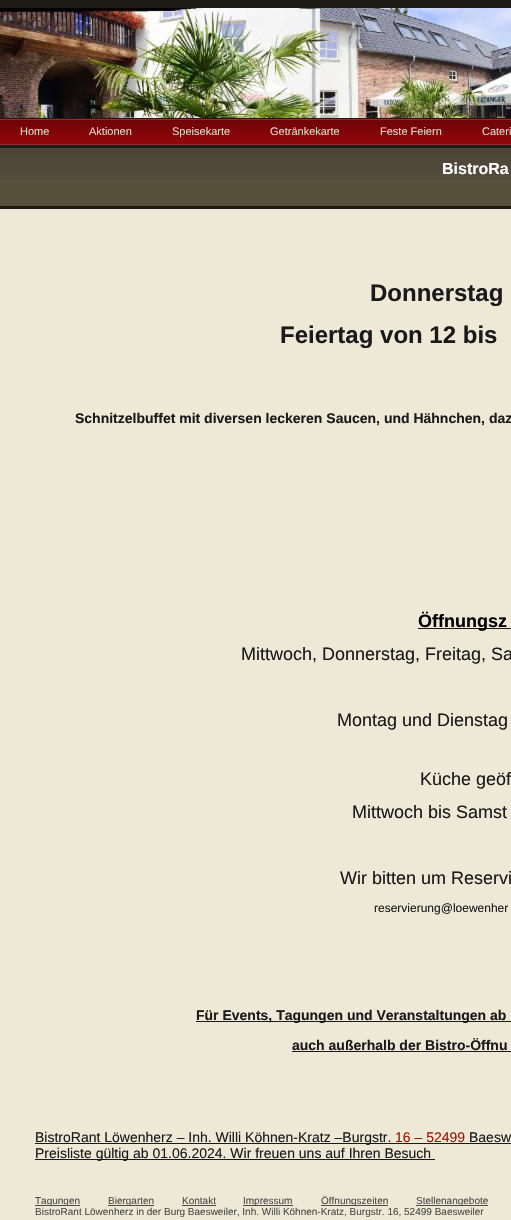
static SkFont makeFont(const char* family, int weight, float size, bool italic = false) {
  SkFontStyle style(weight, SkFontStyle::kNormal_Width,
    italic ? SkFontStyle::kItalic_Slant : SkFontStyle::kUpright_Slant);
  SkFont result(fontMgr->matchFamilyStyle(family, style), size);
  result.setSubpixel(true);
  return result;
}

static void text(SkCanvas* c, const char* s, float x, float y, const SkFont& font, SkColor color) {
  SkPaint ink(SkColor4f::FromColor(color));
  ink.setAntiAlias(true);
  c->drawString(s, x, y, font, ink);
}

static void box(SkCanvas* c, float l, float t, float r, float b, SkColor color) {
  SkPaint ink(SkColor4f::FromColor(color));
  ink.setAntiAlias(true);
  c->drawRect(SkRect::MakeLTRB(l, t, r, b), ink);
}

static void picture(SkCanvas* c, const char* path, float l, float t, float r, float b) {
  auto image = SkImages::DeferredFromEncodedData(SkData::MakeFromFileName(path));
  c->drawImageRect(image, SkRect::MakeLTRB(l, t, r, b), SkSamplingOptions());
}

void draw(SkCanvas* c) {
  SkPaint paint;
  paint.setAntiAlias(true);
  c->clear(0xff1e1b14);
  box(c, 0, 209, 511, 1220, 0xffede9d6);
  picture(c, "img_01.png", 0, 8, 511, 118);
  picture(c, "img_02.png", 0, 119, 511, 145);
  SkFont face1 = makeFont("Liberation Sans", 400, 11);
  text(c, "Home", 20, 135, face1, 0xffdcd8c5);
  text(c, "Aktionen", 89, 135, face1, 0xffdcd8c5);
  text(c, "Speisekarte", 172, 135, face1, 0xffdcd8c5);
  text(c, "Getränkekarte", 270, 135, face1, 0xffdcd8c5);
  text(c, "Feste Feiern", 380, 135, face1, 0xffdcd8c5);
  text(c, "Cateri", 482, 135, face1, 0xffdcd8c5);
  box(c, 0, 180, 511, 206, 0xff59503b);
  picture(c, "img_03.png", 0, 148, 511, 180);
  SkFont face2 = makeFont("Liberation Sans", 700, 16);
  text(c, "BistroRa", 442, 174, face2, 0xffffffff);
  SkFont face3 = makeFont("Liberation Sans", 700, 24);
  text(c, "Donnerstag", 370, 301, face3, 0xff1a1a1a);
  text(c, "Feiertag von 12 bis", 280, 343, face3, 0xff1a1a1a);
  SkFont face4 = makeFont("Liberation Sans", 700, 14);
  text(c, "Schnitzelbuffet mit diversen leckeren Saucen, und Hähnchen, daz", 75, 423, face4, 0xff1a1a1a);
  box(c, 418, 628, 511, 629, 0xff1a1a1a);
  SkFont face5 = makeFont("Liberation Sans", 700, 18);
  text(c, "Öffnungsz", 418, 627, face5, 0xff000000);
  SkFont face6 = makeFont("Liberation Sans", 400, 18);
  text(c, "Mittwoch, Donnerstag, Freitag, Sa", 241, 660, face6, 0xff1a1a1a);
  text(c, "Montag und Dienstag", 337, 726, face6, 0xff1a1a1a);
  text(c, "Küche geöf", 420, 785, face6, 0xff1a1a1a);
  text(c, "Mittwoch bis Samst", 352, 818, face6, 0xff1a1a1a);
  text(c, "Wir bitten um Reservi", 340, 884, face6, 0xff1a1a1a);
  SkFont face7 = makeFont("Liberation Sans", 400, 12);
  text(c, "reservierung@loewenher", 374, 912, face7, 0xff1a1a1a);
  box(c, 196, 1021, 511, 1022, 0xff1a1a1a);
  text(c, "Für Events, Tagungen und Veranstaltungen ab", 196, 1020, face4, 0xff1a1a1a);
  text(c, "auch außerhalb der Bistro-Öffnu", 292, 1050, face4, 0xff1a1a1a);
  box(c, 292, 1051, 511, 1052, 0xff1a1a1a);
  box(c, 35, 1143, 511, 1144, 0xff1a1a1a);
  SkFont face8 = makeFont("Liberation Sans", 400, 14);
  text(c, "BistroRant Löwenherz – Inh. Willi Köhnen-Kratz –Burgstr.", 35, 1142, face8, 0xff1a1a1a);
  text(c, "16 – 52499", 395, 1142, face8, 0xff981700);
  text(c, "Baesw", 469, 1142, face8, 0xff1a1a1a);
  box(c, 35, 1159, 435, 1160, 0xff1a1a1a);
  text(c, "Preisliste gültig ab 01.06.2024. Wir freuen uns auf Ihren Besuch", 35, 1158, face8, 0xff1a1a1a);
  box(c, 35, 1205, 80, 1206, 0xff4c4c47);
  SkFont face9 = makeFont("Liberation Sans", 400, 10);
  text(c, "Tagungen", 35, 1204, face9, 0xff4c4c47);
  box(c, 108, 1205, 154, 1206, 0xff4c4c47);
  text(c, "Biergarten", 108, 1204, face9, 0xff4c4c47);
  text(c, "Kontakt", 182, 1204, face9, 0xff4c4c47);
  box(c, 182, 1205, 216, 1206, 0xff4c4c47);
  box(c, 243, 1205, 293, 1206, 0xff4c4c47);
  text(c, "Impressum", 243, 1204, face9, 0xff4c4c47);
  box(c, 321, 1205, 388, 1206, 0xff4c4c47);
  text(c, "Öffnungszeiten", 321, 1204, face9, 0xff4c4c47);
  box(c, 416, 1205, 488, 1206, 0xff4c4c47);
  text(c, "Stellenangebote", 416, 1204, face9, 0xff4c4c47);
  text(c, "BistroRant Löwenherz in der Burg Baesweiler, Inh. Willi Köhnen-Kratz, Burgstr. 16, 52499 Baesweiler", 35, 1215, face9, 0xff4c4c47);
}
